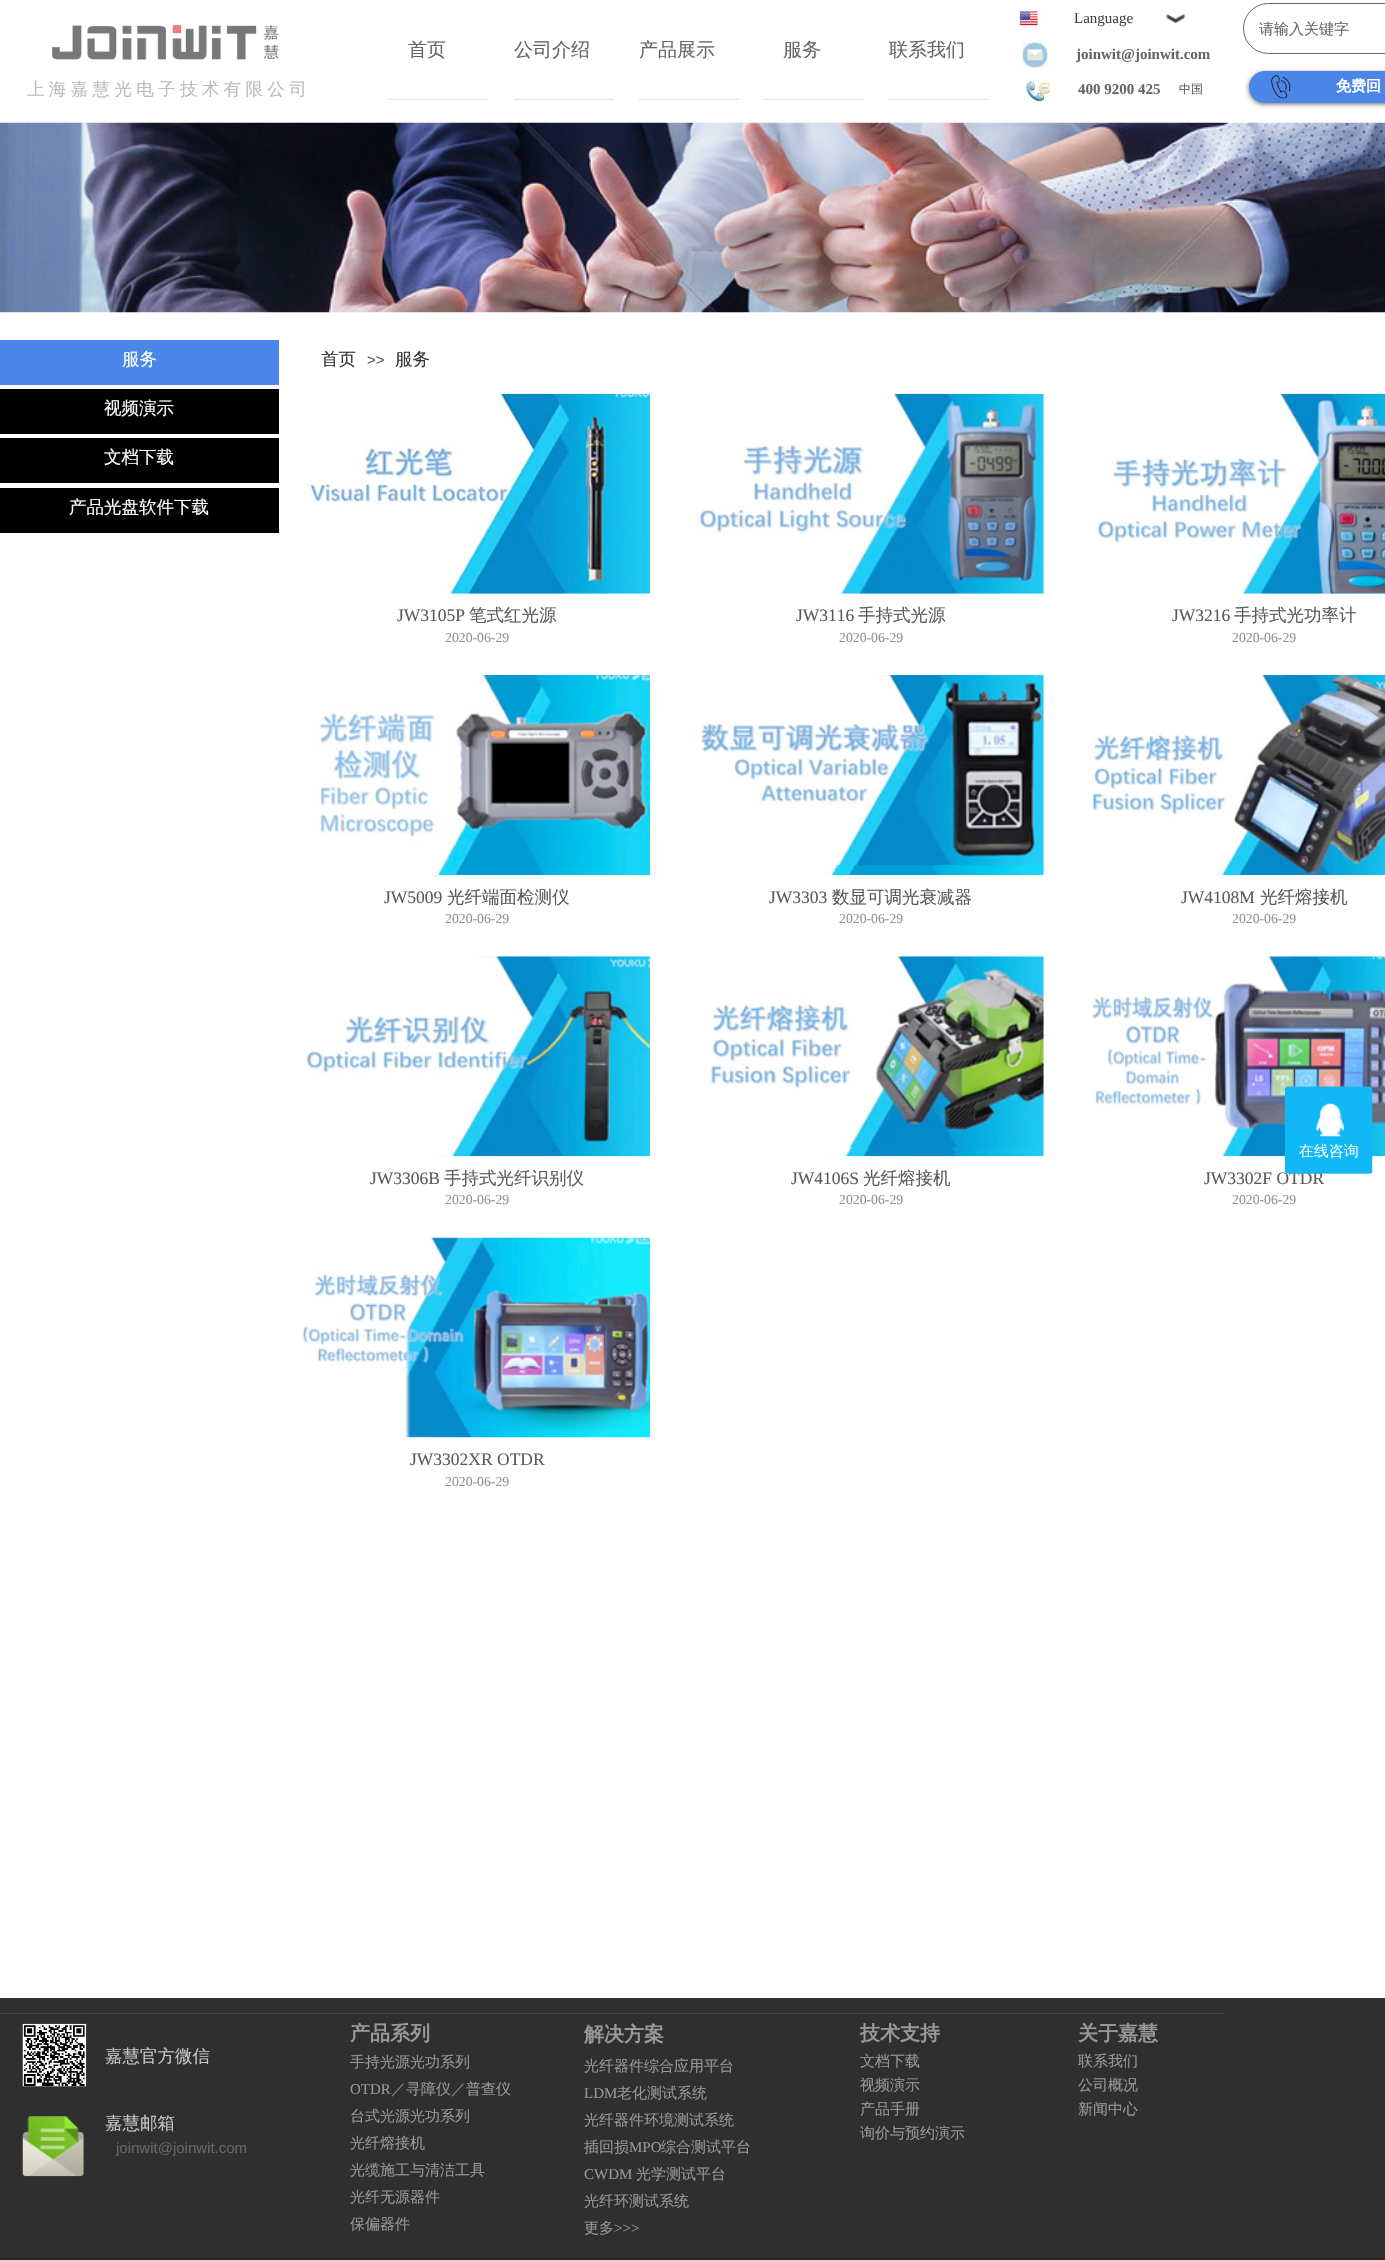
static SkFont makeFont(const char* family, int weight, float size, bool italic = false) {
  SkFontStyle style(weight, SkFontStyle::kNormal_Width,
    italic ? SkFontStyle::kItalic_Slant : SkFontStyle::kUpright_Slant);
  SkFont result(fontMgr->matchFamilyStyle(family, style), size);
  result.setSubpixel(true);
  return result;
}

static void text(SkCanvas* c, const char* s, float x, float y, const SkFont& font, SkColor color) {
  SkPaint ink(SkColor4f::FromColor(color));
  ink.setAntiAlias(true);
  c->drawString(s, x, y, font, ink);
}

static void spacedText(SkCanvas* c, const char* s, float x, float y, const SkFont& font, const SkPaint& ink, float letter, float word) {
  std::vector<SkGlyphID> glyphs(font.countText(s, strlen(s), SkTextEncoding::kUTF8));
  std::vector<float> xs(glyphs.size());
  font.textToGlyphs(s, strlen(s), SkTextEncoding::kUTF8, glyphs);
  font.getXPos(glyphs, xs, x);
  float extra = 0;
  for (size_t i = 0; i < glyphs.size(); i++) {
    xs[i] += extra;
    extra += letter + word * (glyphs[i] == font.unicharToGlyph(' '));
  }
  c->drawTextBlob(SkTextBlob::MakeFromPosHGlyphs(glyphs, xs, y, font), 0, 0, ink);
}

static void box(SkCanvas* c, float l, float t, float r, float b, SkColor color) {
  SkPaint ink(SkColor4f::FromColor(color));
  ink.setAntiAlias(true);
  c->drawRect(SkRect::MakeLTRB(l, t, r, b), ink);
}

static void picture(SkCanvas* c, const char* path, float l, float t, float r, float b) {
  auto image = SkImages::DeferredFromEncodedData(SkData::MakeFromFileName(path));
  c->drawImageRect(image, SkRect::MakeLTRB(l, t, r, b), SkSamplingOptions());
}

void draw(SkCanvas* c) {
  SkPaint paint;
  paint.setAntiAlias(true);
  c->clear(0xffffffff);
  picture(c, "img_01.png", 52, 25, 279, 60);
  picture(c, "img_02.png", 388, 98, 489, 100);
  SkFont face1 = makeFont("WenQuanYi Zen Hei", 500, 19);
  text(c, "首页", 408, 56, face1, 0xff666666);
  picture(c, "img_02.png", 513, 98, 614, 100);
  text(c, "公司介绍", 514, 56, face1, 0xff666666);
  picture(c, "img_02.png", 638, 98, 739, 100);
  text(c, "产品展示", 639, 56, face1, 0xff666666);
  picture(c, "img_02.png", 763, 98, 864, 100);
  text(c, "服务", 783, 56, face1, 0xff666666);
  picture(c, "img_02.png", 888, 98, 989, 100);
  text(c, "联系我们", 889, 56, face1, 0xff666666);
  picture(c, "img_03.png", 1022, 42, 1048, 68);
  picture(c, "img_04.png", 1019, 11, 1186, 26);
  SkFont face2 = makeFont("Liberation Serif", 400, 15);
  text(c, "Language", 1074, 23, face2, 0xff434343);
  paint.setStyle(SkPaint::kStroke_Style);
  paint.setStrokeWidth(1);
  paint.setColor(0xff666666);
  c->drawRoundRect(SkRect::MakeLTRB(1243.5f, 3.5f, 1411.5f, 53.5f), 25, 25, paint);
  box(c, 1251, 11, 1252, 46, 0xffffffff);
  SkFont face3 = makeFont("WenQuanYi Zen Hei", 500, 15);
  text(c, "请输入关键字", 1259, 34, face3, 0xff666666);
  SkFont face4 = makeFont("Liberation Serif", 700, 15);
  text(c, "joinwit@joinwit.com", 1076, 59, face4, 0xff666666);
  SkFont face5 = makeFont("WenQuanYi Zen Hei", 500, 17.5f);
  paint.setStyle(SkPaint::kFill_Style);
  paint.setColor(0xffbbbbbb);
  spacedText(c, "上 海 嘉 慧 光 电 子 技 术 有 限 公 司", 27, 95, face5, paint, 0, -0.9f);
  picture(c, "img_05.png", 1026, 81, 1050, 102);
  text(c, "400 9200 425", 1078, 94, face4, 0xff666666);
  SkFont face6 = makeFont("WenQuanYi Zen Hei", 500, 12);
  text(c, "中国", 1179, 93, face6, 0xff5a5a5a);
  paint.setColor(0x99000000);
  paint.setMaskFilter(SkMaskFilter::MakeBlur(kNormal_SkBlurStyle, 2.5f));
  c->drawRoundRect(SkRect::MakeLTRB(1249, 73, 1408, 104), 15.5f, 15.5f, paint);
  paint.setMaskFilter(nullptr);
  paint.setColor(0xff4a86e8);
  c->drawPath(SkPathBuilder().moveTo(1265, 71).lineTo(1385, 71).lineTo(1385, 103).lineTo(1265, 103).cubicTo(1256, 103, 1249, 96, 1249, 87).cubicTo(1249, 78, 1256, 71, 1265, 71).close().detach(), paint);
  picture(c, "img_06.png", 1271, 75, 1291, 99);
  SkFont face7 = makeFont("WenQuanYi Zen Hei", 700, 15);
  text(c, "免费回", 1336, 91, face7, 0xffffffff);
  picture(c, "img_07.png", 0, 122, 1385, 313);
  box(c, 0, 340, 279, 385, 0xff4a86e8);
  text(c, "服务", 122, 365, face5, 0xffffffff);
  box(c, 0, 389, 279, 434, 0xff000000);
  text(c, "视频演示", 104, 414, face5, 0xffffffff);
  box(c, 0, 438, 279, 483, 0xff000000);
  text(c, "文档下载", 104, 463, face5, 0xffffffff);
  box(c, 0, 488, 279, 533, 0xff000000);
  text(c, "产品光盘软件下载", 69, 513, face5, 0xffffffff);
  text(c, "首页", 321, 365, face5, 0xff333333);
  SkFont face8 = makeFont("Liberation Sans", 400, 15);
  text(c, ">>", 367, 365, face8, 0xff5a5a5a);
  text(c, "服务", 395, 365, face5, 0xff333333);
  picture(c, "img_08.png", 310, 393, 650, 594);
  SkFont face9 = makeFont("Liberation Serif", 400, 17.5f);
  text(c, "JW3105P", 397, 621, face9, 0xff5a5a5a);
  text(c, "笔式红光源", 469, 621, face5, 0xff5a5a5a);
  SkFont face10 = makeFont("Liberation Serif", 400, 13.75f);
  text(c, "2020-06-29", 445, 642, face10, 0xff929292);
  picture(c, "img_09.png", 696, 393, 1044, 594);
  text(c, "JW3116", 796, 621, face9, 0xff5a5a5a);
  text(c, "手持式光源", 858, 621, face5, 0xff5a5a5a);
  text(c, "2020-06-29", 839, 642, face10, 0xff929292);
  picture(c, "img_10.png", 1090, 393, 1385, 594);
  text(c, "JW3216", 1172, 621, face9, 0xff5a5a5a);
  text(c, "手持式光功率计", 1234, 621, face5, 0xff5a5a5a);
  text(c, "2020-06-29", 1232, 642, face10, 0xff929292);
  picture(c, "img_11.png", 315, 675, 650, 875);
  text(c, "JW5009", 384, 903, face9, 0xff5a5a5a);
  text(c, "光纤端面检测仪", 447, 903, face5, 0xff5a5a5a);
  text(c, "2020-06-29", 445, 923, face10, 0xff929292);
  picture(c, "img_12.png", 701, 675, 1044, 875);
  text(c, "JW3303", 769, 903, face9, 0xff5a5a5a);
  text(c, "数显可调光衰减器", 832, 903, face5, 0xff5a5a5a);
  text(c, "2020-06-29", 839, 923, face10, 0xff929292);
  picture(c, "img_13.png", 1092, 675, 1385, 875);
  text(c, "JW4108M", 1181, 903, face9, 0xff5a5a5a);
  text(c, "光纤熔接机", 1260, 903, face5, 0xff5a5a5a);
  text(c, "2020-06-29", 1232, 923, face10, 0xff929292);
  picture(c, "img_14.png", 304, 956, 650, 1157);
  text(c, "JW3306B", 370, 1184, face9, 0xff5a5a5a);
  text(c, "手持式光纤识别仪", 444, 1184, face5, 0xff5a5a5a);
  text(c, "2020-06-29", 445, 1204, face10, 0xff929292);
  picture(c, "img_15.png", 711, 956, 1044, 1157);
  text(c, "JW4106S", 791, 1184, face9, 0xff5a5a5a);
  text(c, "光纤熔接机", 863, 1184, face5, 0xff5a5a5a);
  text(c, "2020-06-29", 839, 1204, face10, 0xff929292);
  picture(c, "img_16.png", 1092, 956, 1385, 1157);
  text(c, "JW3302F OTDR", 1204, 1184, face9, 0xff5a5a5a);
  text(c, "2020-06-29", 1232, 1204, face10, 0xff929292);
  picture(c, "img_17.png", 302, 1237, 650, 1438);
  text(c, "JW3302XR OTDR", 410, 1465, face9, 0xff5a5a5a);
  text(c, "2020-06-29", 445, 1486, face10, 0xff929292);
  box(c, 0, 1998, 1385, 2258, 0xff2f2f2f);
  box(c, 0, 2013, 1225, 2014, 0xff434343);
  picture(c, "img_18.png", 22, 2023, 87, 2087);
  text(c, "嘉慧官方微信", 105, 2062, face5, 0xffc7c7c7);
  SkFont face11 = makeFont("WenQuanYi Zen Hei", 700, 20);
  text(c, "产品系列", 350, 2040, face11, 0xff989898);
  text(c, "手持光源光功系列", 350, 2067, face3, 0xff989898);
  text(c, "OTDR", 350, 2094, face2, 0xff989898);
  text(c, "／寻障仪／普查仪", 391, 2094, face3, 0xff989898);
  text(c, "台式光源光功系列", 350, 2121, face3, 0xff989898);
  text(c, "光纤熔接机", 350, 2148, face3, 0xff989898);
  text(c, "光缆施工与清洁工具", 350, 2175, face3, 0xff989898);
  text(c, "光纤无源器件", 350, 2202, face3, 0xff989898);
  text(c, "保偏器件", 350, 2229, face3, 0xff989898);
  text(c, "解决方案", 584, 2041, face11, 0xff989898);
  text(c, "光纤器件综合应用平台", 584, 2071, face3, 0xff989898);
  text(c, "LDM", 584, 2098, face2, 0xff989898);
  text(c, "老化测试系统", 617, 2098, face3, 0xff989898);
  text(c, "光纤器件环境测试系统", 584, 2125, face3, 0xff989898);
  text(c, "插回损", 584, 2152, face3, 0xff989898);
  text(c, "MPO", 629, 2152, face2, 0xff989898);
  text(c, "综合测试平台", 661, 2152, face3, 0xff989898);
  text(c, "CWDM", 584, 2179, face2, 0xff989898);
  text(c, "光学测试平台", 636, 2179, face3, 0xff989898);
  text(c, "光纤环测试系统", 584, 2206, face3, 0xff989898);
  text(c, "更多", 584, 2233, face3, 0xff989898);
  text(c, ">>>", 614, 2233, face2, 0xff989898);
  text(c, "技术支持", 860, 2040, face11, 0xff989898);
  text(c, "文档下载", 860, 2066, face3, 0xff989898);
  text(c, "视频演示", 860, 2090, face3, 0xff989898);
  text(c, "产品手册", 860, 2114, face3, 0xff989898);
  text(c, "询价与预约演示", 860, 2138, face3, 0xff989898);
  text(c, "关于嘉慧", 1078, 2040, face11, 0xff989898);
  c->save();
  c->clipRect(SkRect::MakeLTRB(1078, 2018, 1179, 2135));
  text(c, "联系我们", 1078, 2066, face3, 0xff989898);
  c->restore();
  text(c, "公司概况", 1078, 2090, face3, 0xff989898);
  text(c, "新闻中心", 1078, 2114, face3, 0xff989898);
  picture(c, "img_19.png", 22, 2116, 84, 2177);
  text(c, "嘉慧邮箱", 105, 2129, face5, 0xffc7c7c7);
  text(c, "joinwit@joinwit.com", 116, 2153, face8, 0xff666666);
  box(c, 0, 2258, 1385, 2260, 0xff252525);
  picture(c, "img_20.png", 1285, 1086, 1373, 1174);
}
